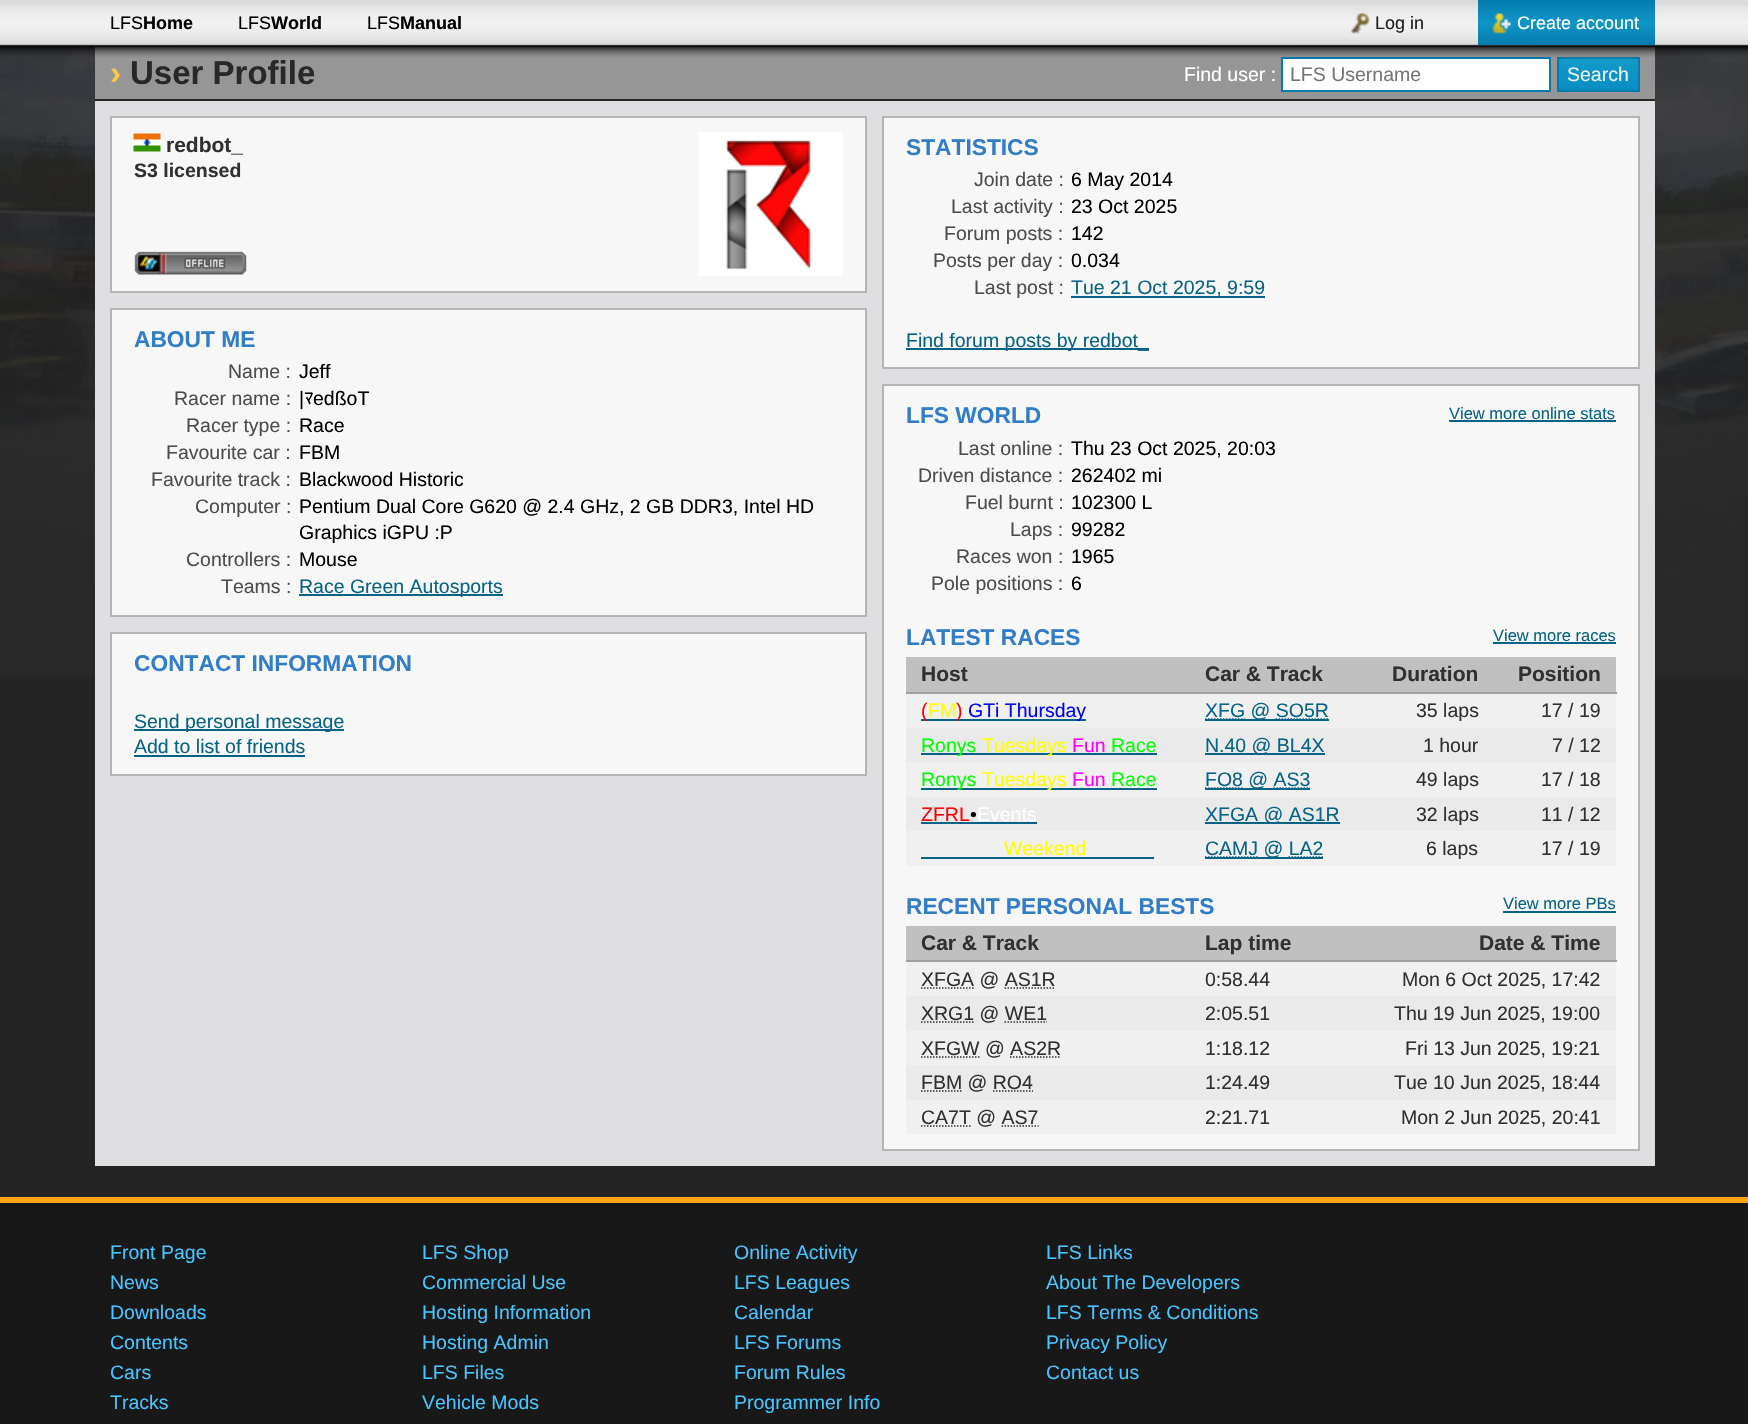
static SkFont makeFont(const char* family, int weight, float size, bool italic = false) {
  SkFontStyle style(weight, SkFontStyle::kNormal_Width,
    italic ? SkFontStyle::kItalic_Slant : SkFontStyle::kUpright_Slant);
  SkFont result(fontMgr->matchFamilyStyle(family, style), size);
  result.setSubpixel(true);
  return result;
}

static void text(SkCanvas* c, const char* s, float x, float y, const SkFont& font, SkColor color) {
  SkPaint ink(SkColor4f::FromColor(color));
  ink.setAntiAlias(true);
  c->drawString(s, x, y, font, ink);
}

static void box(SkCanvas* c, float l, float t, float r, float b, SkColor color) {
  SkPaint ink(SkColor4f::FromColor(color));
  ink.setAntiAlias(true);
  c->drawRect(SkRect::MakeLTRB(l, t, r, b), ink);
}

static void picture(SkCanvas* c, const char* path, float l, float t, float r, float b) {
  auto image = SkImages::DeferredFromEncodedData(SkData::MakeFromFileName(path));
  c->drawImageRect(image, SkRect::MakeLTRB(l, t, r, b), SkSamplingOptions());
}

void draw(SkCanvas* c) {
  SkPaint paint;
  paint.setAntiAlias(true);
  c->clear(0xff242424);
  picture(c, "img_01.png", 0, 44, 1748, 677);
  box(c, 95, 47, 1655, 99, 0xff969696);
  paint.setColor(0xffffffff);
  c->drawRect(SkRect::MakeLTRB(1282, 58, 1550, 91), paint);
  paint.setStyle(SkPaint::kStroke_Style);
  paint.setStrokeWidth(2);
  paint.setColor(0xff057bad);
  c->drawRect(SkRect::MakeLTRB(1282, 58, 1550, 91), paint);
  paint.setStyle(SkPaint::kFill_Style);
  {
    const SkColor colors[] = {0xff109ac9, 0xff0a8ec3};
    const float stops[] = {0, 1};
    const SkPoint ends[] = {{1598, 59}, {1598, 90}};
    paint.setShader(SkGradientShader::MakeLinear(ends, colors, stops, 2, SkTileMode::kClamp));
    paint.setAlpha(255);
  }
  c->drawRect(SkRect::MakeLTRB(1559, 59, 1638, 90), paint);
  paint.setStyle(SkPaint::kStroke_Style);
  paint.setShader(nullptr);
  paint.setColor(0xff057bad);
  c->drawRect(SkRect::MakeLTRB(1558, 58, 1639, 91), paint);
  picture(c, "img_02.png", 0, 0, 1748, 58);
  SkFont face1 = makeFont("Liberation Sans", 400, 18);
  text(c, "LFS", 110, 29, face1, 0xff000000);
  SkFont face2 = makeFont("Liberation Sans", 700, 18);
  text(c, "Home", 143, 29, face2, 0xff000000);
  text(c, "LFS", 238, 29, face1, 0xff000000);
  text(c, "World", 271, 29, face2, 0xff000000);
  text(c, "LFS", 367, 29, face1, 0xff000000);
  text(c, "Manual", 400, 29, face2, 0xff000000);
  picture(c, "img_03.png", 1350, 13, 1370, 34);
  text(c, "Log in", 1375, 29, face1, 0xff202020);
  paint.setStyle(SkPaint::kFill_Style);
  {
    const SkColor colors[] = {0xff057bad, 0xff0e96c7, 0xff057bad};
    const float stops[] = {0, 0.5f, 1};
    const SkPoint ends[] = {{1566, 0}, {1566, 45}};
    paint.setShader(SkGradientShader::MakeLinear(ends, colors, stops, 3, SkTileMode::kClamp));
    paint.setAlpha(255);
  }
  c->drawRect(SkRect::MakeLTRB(1478, 0, 1655, 45), paint);
  picture(c, "img_04.png", 1492, 13, 1511, 34);
  text(c, "Create account", 1517, 29, face1, 0xffffffff);
  SkFont face3 = makeFont("Liberation Sans", 700, 33);
  text(c, "›", 110, 84, face3, 0xfffbc946);
  text(c, "User Profile", 130, 84, face3, 0xff282828);
  SkFont face4 = makeFont("Liberation Sans", 400, 19.5f);
  text(c, "Find user :", 1184, 81, face4, 0xffffffff);
  text(c, "LFS Username", 1290, 81, face4, 0xff757575);
  text(c, "Search", 1567, 81, face4, 0xfff0f0f0);
  box(c, 95, 101, 1655, 1166, 0xffdfdee0);
  box(c, 95, 99, 1655, 101, 0xff282828);
  paint.setShader(nullptr);
  paint.setColor(0xfff7f7f7);
  c->drawRect(SkRect::MakeLTRB(111, 117, 866, 292), paint);
  paint.setStyle(SkPaint::kStroke_Style);
  paint.setColor(0xffb5b5b5);
  c->drawRect(SkRect::MakeLTRB(111, 117, 866, 292), paint);
  picture(c, "img_05.png", 133, 133, 161, 152);
  SkFont face5 = makeFont("Liberation Sans", 700, 21);
  text(c, "redbot_", 166, 152, face5, 0xff303030);
  picture(c, "img_06.png", 699, 132, 843, 276);
  SkFont face6 = makeFont("Liberation Sans", 700, 19.5f);
  text(c, "S3 licensed", 134, 177, face6, 0xff303030);
  picture(c, "img_07.png", 134, 251, 247, 275);
  paint.setStyle(SkPaint::kFill_Style);
  paint.setColor(0xfff7f7f7);
  c->drawRect(SkRect::MakeLTRB(111, 309, 866, 616), paint);
  paint.setStyle(SkPaint::kStroke_Style);
  paint.setColor(0xffb5b5b5);
  c->drawRect(SkRect::MakeLTRB(111, 309, 866, 616), paint);
  SkFont face7 = makeFont("Liberation Sans", 700, 22.75f);
  text(c, "ABOUT ME", 134, 347, face7, 0xff327dc8);
  text(c, "Name :", 228, 378, face4, 0xff4c4c4c);
  text(c, "Jeff", 299, 378, face4, 0xff000000);
  text(c, "Racer name :", 174, 405, face4, 0xff4c4c4c);
  text(c, "|", 299, 405, face4, 0xff000000);
  SkFont face8 = makeFont("IPAGothic", 400, 19.5f);
  text(c, "ﾏ", 304, 405, face8, 0xff000000);
  text(c, "edßoT", 313, 405, face4, 0xff000000);
  text(c, "Racer type :", 186, 432, face4, 0xff4c4c4c);
  text(c, "Race", 299, 432, face4, 0xff000000);
  text(c, "Favourite car :", 166, 459, face4, 0xff4c4c4c);
  text(c, "FBM", 299, 459, face4, 0xff000000);
  text(c, "Favourite track :", 151, 486, face4, 0xff4c4c4c);
  text(c, "Blackwood Historic", 299, 486, face4, 0xff000000);
  text(c, "Computer :", 195, 513, face4, 0xff4c4c4c);
  text(c, "Pentium Dual Core G620 @ 2.4 GHz, 2 GB DDR3, Intel HD", 299, 513, face4, 0xff000000);
  text(c, "Graphics iGPU :P", 299, 539, face4, 0xff000000);
  text(c, "Controllers :", 186, 566, face4, 0xff4c4c4c);
  text(c, "Mouse", 299, 566, face4, 0xff000000);
  text(c, "Teams :", 221, 593, face4, 0xff4c4c4c);
  box(c, 299, 594, 503, 596, 0xff066386);
  text(c, "Race Green Autosports", 299, 593, face4, 0xff066386);
  paint.setStyle(SkPaint::kFill_Style);
  paint.setColor(0xfff7f7f7);
  c->drawRect(SkRect::MakeLTRB(111, 633, 866, 775), paint);
  paint.setStyle(SkPaint::kStroke_Style);
  paint.setColor(0xffb5b5b5);
  c->drawRect(SkRect::MakeLTRB(111, 633, 866, 775), paint);
  text(c, "CONTACT INFORMATION", 134, 671, face7, 0xff327dc8);
  box(c, 134, 729, 344, 731, 0xff066386);
  text(c, "Send personal message", 134, 728, face4, 0xff066386);
  text(c, "Add to list of friends", 134, 753, face4, 0xff066386);
  box(c, 134, 755, 305, 757, 0xff066386);
  paint.setStyle(SkPaint::kFill_Style);
  paint.setColor(0xfff7f7f7);
  c->drawRect(SkRect::MakeLTRB(883, 117, 1639, 368), paint);
  paint.setStyle(SkPaint::kStroke_Style);
  paint.setColor(0xffb5b5b5);
  c->drawRect(SkRect::MakeLTRB(883, 117, 1639, 368), paint);
  text(c, "STATISTICS", 906, 155, face7, 0xff327dc8);
  text(c, "Join date :", 974, 186, face4, 0xff4c4c4c);
  text(c, "6 May 2014", 1071, 186, face4, 0xff000000);
  text(c, "Last activity :", 951, 213, face4, 0xff4c4c4c);
  text(c, "23 Oct 2025", 1071, 213, face4, 0xff000000);
  text(c, "Forum posts :", 944, 240, face4, 0xff4c4c4c);
  text(c, "142", 1071, 240, face4, 0xff000000);
  text(c, "Posts per day :", 933, 267, face4, 0xff4c4c4c);
  text(c, "0.034", 1071, 267, face4, 0xff000000);
  text(c, "Last post :", 974, 294, face4, 0xff4c4c4c);
  box(c, 1071, 296, 1265, 298, 0xff066386);
  text(c, "Tue 21 Oct 2025, 9:59", 1071, 294, face4, 0xff066386);
  box(c, 906, 348, 1149, 350, 0xff066386);
  text(c, "Find forum posts by redbot_", 906, 347, face4, 0xff066386);
  paint.setStyle(SkPaint::kFill_Style);
  paint.setColor(0xfff7f7f7);
  c->drawRect(SkRect::MakeLTRB(883, 385, 1639, 1150), paint);
  paint.setStyle(SkPaint::kStroke_Style);
  paint.setColor(0xffb5b5b5);
  c->drawRect(SkRect::MakeLTRB(883, 385, 1639, 1150), paint);
  text(c, "LFS WORLD", 906, 423, face7, 0xff327dc8);
  SkFont face9 = makeFont("Liberation Sans", 400, 16.5f);
  text(c, "View more online stats", 1449, 419, face9, 0xff066386);
  box(c, 1449, 420, 1616, 422, 0xff066386);
  text(c, "Last online :", 958, 455, face4, 0xff4c4c4c);
  text(c, "Thu 23 Oct 2025, 20:03", 1071, 455, face4, 0xff000000);
  text(c, "Driven distance :", 918, 482, face4, 0xff4c4c4c);
  text(c, "262402 mi", 1071, 482, face4, 0xff000000);
  text(c, "Fuel burnt :", 965, 509, face4, 0xff4c4c4c);
  text(c, "102300 L", 1071, 509, face4, 0xff000000);
  text(c, "Laps :", 1010, 536, face4, 0xff4c4c4c);
  text(c, "99282", 1071, 536, face4, 0xff000000);
  text(c, "Races won :", 956, 563, face4, 0xff4c4c4c);
  text(c, "1965", 1071, 563, face4, 0xff000000);
  text(c, "Pole positions :", 931, 590, face4, 0xff4c4c4c);
  text(c, "6", 1071, 590, face4, 0xff000000);
  text(c, "LATEST RACES", 906, 645, face7, 0xff327dc8);
  text(c, "View more races", 1493, 641, face9, 0xff066386);
  box(c, 1493, 642, 1616, 644, 0xff066386);
  box(c, 906, 657, 1616, 692, 0xffc0c0c0);
  text(c, "Host", 921, 681, face5, 0xff303030);
  text(c, "Car & Track", 1205, 681, face5, 0xff303030);
  text(c, "Duration", 1392, 681, face5, 0xff303030);
  box(c, 906, 692, 1617, 694, 0xffa0a0a0);
  text(c, "Position", 1518, 681, face5, 0xff303030);
  box(c, 906, 694, 1616, 728, 0xfff0f0f0);
  box(c, 921, 719, 927, 721, 0xff066386);
  text(c, "(", 921, 717, face4, 0xffff0000);
  box(c, 927, 719, 1086, 721, 0xff066386);
  text(c, "FM", 928, 717, face4, 0xffffff00);
  text(c, ")", 956, 717, face4, 0xffff0000);
  text(c, "GTi Thursday", 968, 717, face4, 0xff0000ff);
  box(c, 1205, 719, 1329, 721, 0xff066386);
  paint.setStrokeWidth(1.5f);
  paint.setColor(0xff066386);
  paint.setPathEffect(SkDashPathEffect::Make({{1.5f, 1.5f}}, 0));
  c->drawPath(SkPathBuilder().moveTo(1205, 719).lineTo(1245, 719).detach(), paint);
  paint.setPathEffect(nullptr);
  text(c, "XFG @ SO5R", 1205, 717, face4, 0xff066386);
  paint.setPathEffect(SkDashPathEffect::Make({{1.5f, 1.5f}}, 0));
  c->drawPath(SkPathBuilder().moveTo(1275.5f, 719).lineTo(1328.5f, 719).detach(), paint);
  paint.setPathEffect(nullptr);
  text(c, "35 laps", 1416, 717, face4, 0xff303030);
  text(c, "17 / 19", 1541, 717, face4, 0xff303030);
  box(c, 906, 728, 1616, 762, 0xffeaeaea);
  box(c, 921, 753, 1157, 755, 0xff066386);
  text(c, "Ronys", 921, 752, face4, 0xff00ff00);
  text(c, "Tuesdays", 982, 752, face4, 0xffffff00);
  text(c, "Fun", 1072, 752, face4, 0xffff00ff);
  text(c, "Race", 1111, 752, face4, 0xff00ff00);
  box(c, 1205, 753, 1325, 755, 0xff066386);
  text(c, "N.40 @ BL4X", 1205, 752, face4, 0xff066386);
  text(c, "1 hour", 1423, 752, face4, 0xff303030);
  text(c, "7 / 12", 1552, 752, face4, 0xff303030);
  box(c, 906, 762, 1616, 797, 0xfff0f0f0);
  box(c, 921, 788, 1157, 790, 0xff066386);
  text(c, "Ronys", 921, 786, face4, 0xff00ff00);
  text(c, "Tuesdays", 982, 786, face4, 0xffffff00);
  text(c, "Fun", 1072, 786, face4, 0xffff00ff);
  text(c, "Race", 1111, 786, face4, 0xff00ff00);
  box(c, 1205, 788, 1310, 790, 0xff066386);
  paint.setPathEffect(SkDashPathEffect::Make({{1.5f, 1.5f}}, 0));
  c->drawPath(SkPathBuilder().moveTo(1205, 788).lineTo(1242.5f, 788).detach(), paint);
  paint.setPathEffect(nullptr);
  text(c, "FO8 @ AS3", 1205, 786, face4, 0xff066386);
  paint.setPathEffect(SkDashPathEffect::Make({{1.5f, 1.5f}}, 0));
  c->drawPath(SkPathBuilder().moveTo(1273.5f, 788).lineTo(1310, 788).detach(), paint);
  paint.setPathEffect(nullptr);
  text(c, "49 laps", 1416, 786, face4, 0xff303030);
  text(c, "17 / 18", 1541, 786, face4, 0xff303030);
  box(c, 906, 797, 1616, 831, 0xffeaeaea);
  text(c, "ZFRL", 921, 821, face4, 0xffff0000);
  text(c, "•", 970, 821, face4, 0xff000000);
  box(c, 921, 822, 1037, 824, 0xff066386);
  text(c, "Events", 977, 821, face4, 0xffffffff);
  box(c, 1205, 822, 1340, 824, 0xff066386);
  text(c, "XFGA @ AS1R", 1205, 821, face4, 0xff066386);
  text(c, "32 laps", 1416, 821, face4, 0xff303030);
  text(c, "11 / 12", 1541, 821, face4, 0xff303030);
  box(c, 906, 831, 1616, 866, 0xfff0f0f0);
  text(c, "Weekend", 1004, 855, face4, 0xffffff00);
  box(c, 921, 857, 1154, 859, 0xff066386);
  box(c, 1205, 857, 1323, 859, 0xff066386);
  paint.setPathEffect(SkDashPathEffect::Make({{1.5f, 1.5f}}, 0));
  c->drawPath(SkPathBuilder().moveTo(1205, 857).lineTo(1258, 857).detach(), paint);
  paint.setPathEffect(nullptr);
  text(c, "CAMJ @ LA2", 1205, 855, face4, 0xff066386);
  paint.setPathEffect(SkDashPathEffect::Make({{1.5f, 1.5f}}, 0));
  c->drawPath(SkPathBuilder().moveTo(1288.5f, 857).lineTo(1323, 857).detach(), paint);
  paint.setPathEffect(nullptr);
  text(c, "6 laps", 1426, 855, face4, 0xff303030);
  text(c, "17 / 19", 1541, 855, face4, 0xff303030);
  text(c, "RECENT PERSONAL BESTS", 906, 914, face7, 0xff327dc8);
  text(c, "View more PBs", 1503, 909, face9, 0xff066386);
  box(c, 1503, 911, 1616, 913, 0xff066386);
  box(c, 906, 926, 1616, 960, 0xffc0c0c0);
  text(c, "Car & Track", 921, 950, face5, 0xff303030);
  text(c, "Lap time", 1205, 950, face5, 0xff303030);
  box(c, 906, 960, 1617, 962, 0xffa0a0a0);
  text(c, "Date & Time", 1479, 950, face5, 0xff303030);
  box(c, 906, 962, 1616, 996, 0xfff0f0f0);
  paint.setColor(0xff303030);
  paint.setPathEffect(SkDashPathEffect::Make({{1.5f, 1.5f}}, 0));
  c->drawPath(SkPathBuilder().moveTo(921, 988).lineTo(974, 988).detach(), paint);
  paint.setPathEffect(nullptr);
  text(c, "XFGA @ AS1R", 921, 986, face4, 0xff303030);
  paint.setPathEffect(SkDashPathEffect::Make({{1.5f, 1.5f}}, 0));
  c->drawPath(SkPathBuilder().moveTo(1004.5f, 988).lineTo(1055.5f, 988).detach(), paint);
  paint.setPathEffect(nullptr);
  text(c, "0:58.44", 1205, 986, face4, 0xff303030);
  text(c, "Mon 6 Oct 2025, 17:42", 1402, 986, face4, 0xff303030);
  box(c, 906, 996, 1616, 1031, 0xffeaeaea);
  paint.setPathEffect(SkDashPathEffect::Make({{1.5f, 1.5f}}, 0));
  c->drawPath(SkPathBuilder().moveTo(921, 1022).lineTo(974, 1022).detach(), paint);
  paint.setPathEffect(nullptr);
  text(c, "XRG1 @ WE1", 921, 1020, face4, 0xff303030);
  paint.setPathEffect(SkDashPathEffect::Make({{1.5f, 1.5f}}, 0));
  c->drawPath(SkPathBuilder().moveTo(1004.5f, 1022).lineTo(1047, 1022).detach(), paint);
  paint.setPathEffect(nullptr);
  text(c, "2:05.51", 1205, 1020, face4, 0xff303030);
  text(c, "Thu 19 Jun 2025, 19:00", 1394, 1020, face4, 0xff303030);
  box(c, 906, 1031, 1616, 1065, 0xfff0f0f0);
  paint.setPathEffect(SkDashPathEffect::Make({{1.5f, 1.5f}}, 0));
  c->drawPath(SkPathBuilder().moveTo(921, 1057).lineTo(979.5f, 1057).detach(), paint);
  paint.setPathEffect(nullptr);
  text(c, "XFGW @ AS2R", 921, 1055, face4, 0xff303030);
  paint.setPathEffect(SkDashPathEffect::Make({{1.5f, 1.5f}}, 0));
  c->drawPath(SkPathBuilder().moveTo(1010, 1057).lineTo(1061, 1057).detach(), paint);
  paint.setPathEffect(nullptr);
  text(c, "1:18.12", 1205, 1055, face4, 0xff303030);
  text(c, "Fri 13 Jun 2025, 19:21", 1405, 1055, face4, 0xff303030);
  box(c, 906, 1065, 1616, 1100, 0xffeaeaea);
  paint.setPathEffect(SkDashPathEffect::Make({{1.5f, 1.5f}}, 0));
  c->drawPath(SkPathBuilder().moveTo(921, 1091).lineTo(962, 1091).detach(), paint);
  paint.setPathEffect(nullptr);
  text(c, "FBM @ RO4", 921, 1089, face4, 0xff303030);
  paint.setPathEffect(SkDashPathEffect::Make({{1.5f, 1.5f}}, 0));
  c->drawPath(SkPathBuilder().moveTo(993, 1091).lineTo(1033, 1091).detach(), paint);
  paint.setPathEffect(nullptr);
  text(c, "1:24.49", 1205, 1089, face4, 0xff303030);
  text(c, "Tue 10 Jun 2025, 18:44", 1394, 1089, face4, 0xff303030);
  box(c, 906, 1100, 1616, 1134, 0xfff0f0f0);
  paint.setPathEffect(SkDashPathEffect::Make({{1.5f, 1.5f}}, 0));
  c->drawPath(SkPathBuilder().moveTo(921, 1126).lineTo(971, 1126).detach(), paint);
  paint.setPathEffect(nullptr);
  text(c, "CA7T @ AS7", 921, 1124, face4, 0xff303030);
  paint.setPathEffect(SkDashPathEffect::Make({{1.5f, 1.5f}}, 0));
  c->drawPath(SkPathBuilder().moveTo(1001.5f, 1126).lineTo(1038.5f, 1126).detach(), paint);
  paint.setPathEffect(nullptr);
  text(c, "2:21.71", 1205, 1124, face4, 0xff303030);
  text(c, "Mon 2 Jun 2025, 20:41", 1401, 1124, face4, 0xff303030);
  box(c, 0, 1203, 1748, 1424, 0xff181818);
  box(c, 0, 1197, 1748, 1203, 0xffffa519);
  text(c, "Front Page", 110, 1259, face4, 0xff48c5ff);
  text(c, "News", 110, 1289, face4, 0xff48c5ff);
  text(c, "Downloads", 110, 1319, face4, 0xff48c5ff);
  text(c, "Contents", 110, 1349, face4, 0xff48c5ff);
  text(c, "Cars", 110, 1379, face4, 0xff48c5ff);
  text(c, "Tracks", 110, 1409, face4, 0xff48c5ff);
  text(c, "LFS Shop", 422, 1259, face4, 0xff48c5ff);
  text(c, "Commercial Use", 422, 1289, face4, 0xff48c5ff);
  text(c, "Hosting Information", 422, 1319, face4, 0xff48c5ff);
  text(c, "Hosting Admin", 422, 1349, face4, 0xff48c5ff);
  text(c, "LFS Files", 422, 1379, face4, 0xff48c5ff);
  text(c, "Vehicle Mods", 422, 1409, face4, 0xff48c5ff);
  text(c, "Online Activity", 734, 1259, face4, 0xff48c5ff);
  text(c, "LFS Leagues", 734, 1289, face4, 0xff48c5ff);
  text(c, "Calendar", 734, 1319, face4, 0xff48c5ff);
  text(c, "LFS Forums", 734, 1349, face4, 0xff48c5ff);
  text(c, "Forum Rules", 734, 1379, face4, 0xff48c5ff);
  text(c, "Programmer Info", 734, 1409, face4, 0xff48c5ff);
  text(c, "LFS Links", 1046, 1259, face4, 0xff48c5ff);
  text(c, "About The Developers", 1046, 1289, face4, 0xff48c5ff);
  text(c, "LFS Terms & Conditions", 1046, 1319, face4, 0xff48c5ff);
  text(c, "Privacy Policy", 1046, 1349, face4, 0xff48c5ff);
  text(c, "Contact us", 1046, 1379, face4, 0xff48c5ff);
}
